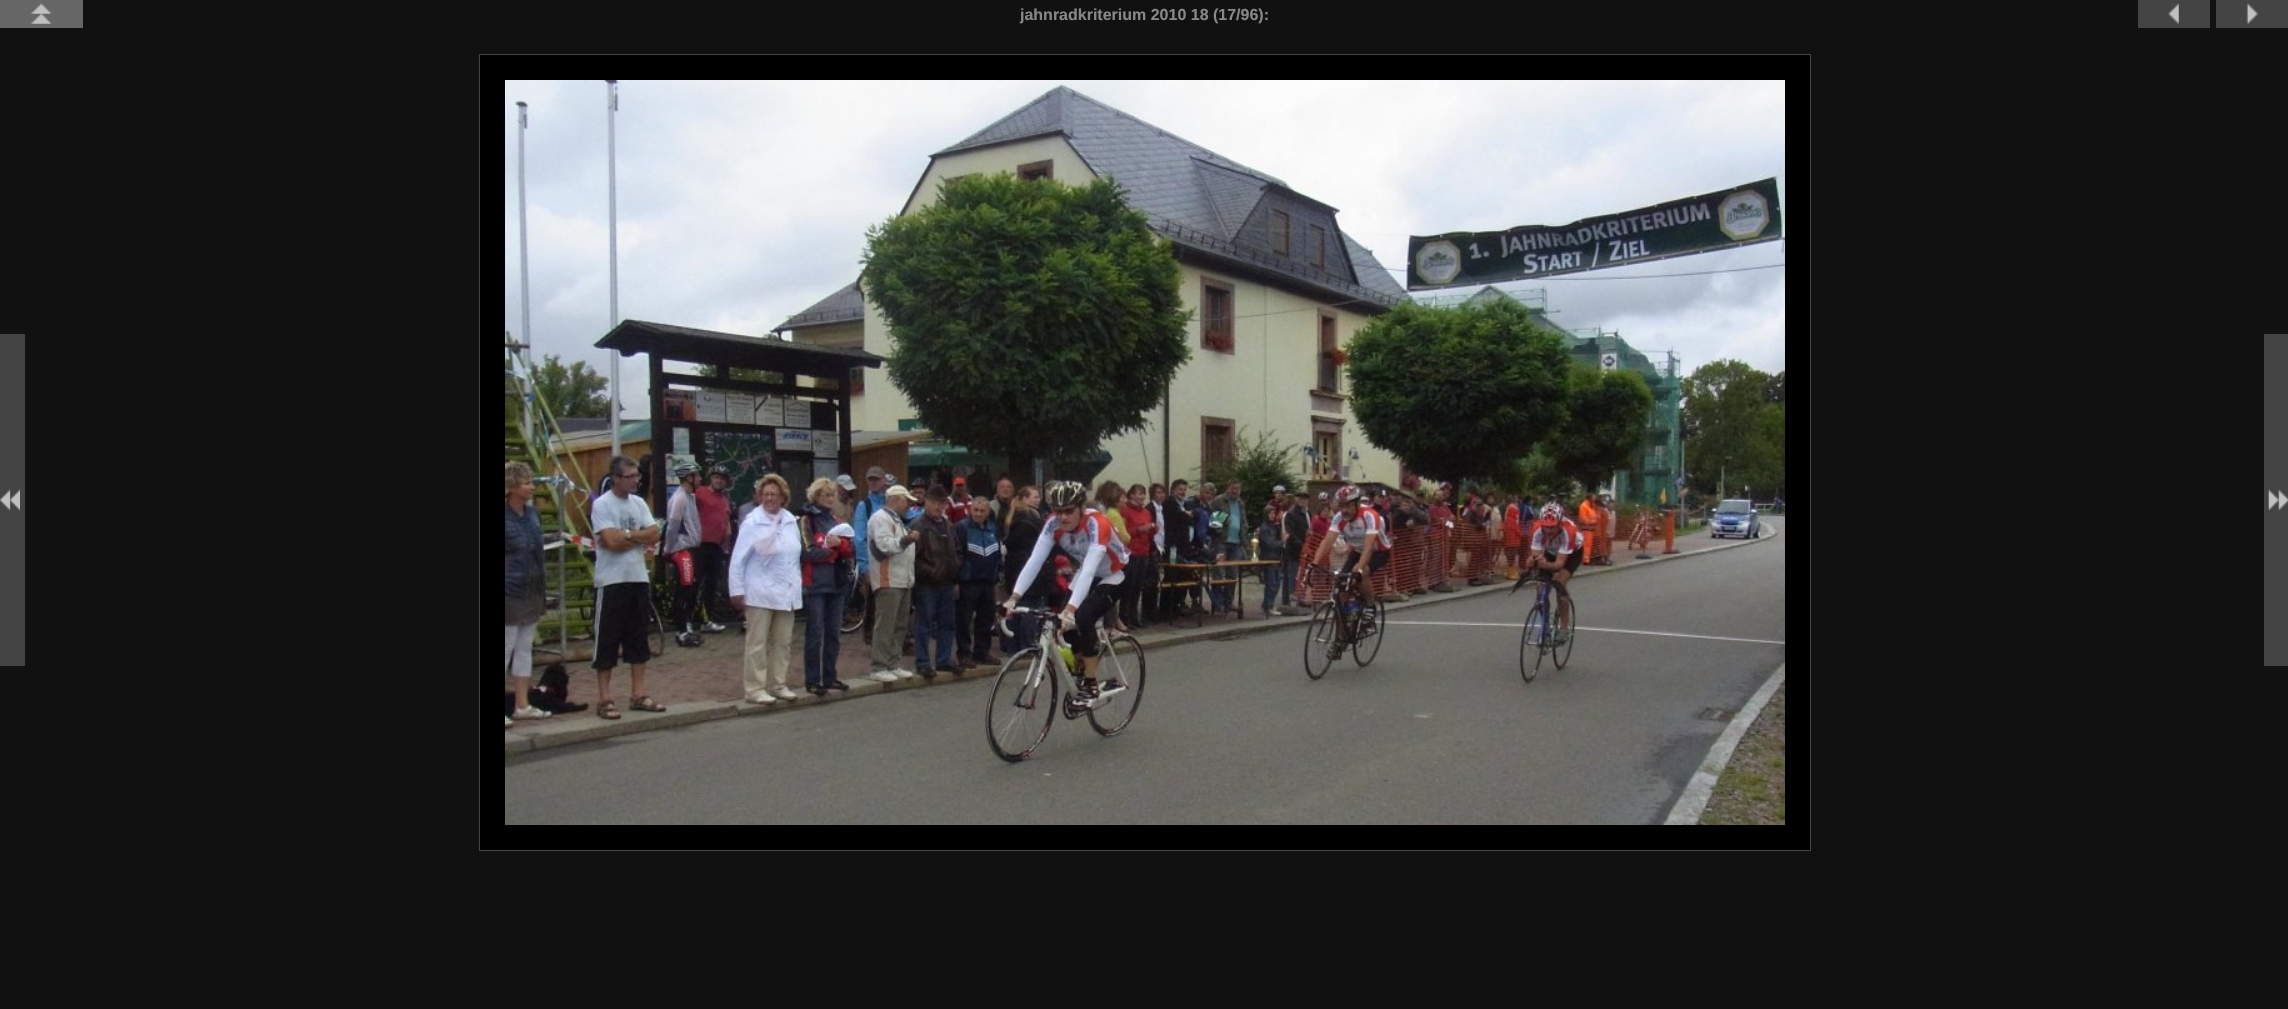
static SkFont makeFont(const char* family, int weight, float size, bool italic = false) {
  SkFontStyle style(weight, SkFontStyle::kNormal_Width,
    italic ? SkFontStyle::kItalic_Slant : SkFontStyle::kUpright_Slant);
  SkFont result(fontMgr->matchFamilyStyle(family, style), size);
  result.setSubpixel(true);
  return result;
}

static void text(SkCanvas* c, const char* s, float x, float y, const SkFont& font, SkColor color) {
  SkPaint ink(SkColor4f::FromColor(color));
  ink.setAntiAlias(true);
  c->drawString(s, x, y, font, ink);
}

static void box(SkCanvas* c, float l, float t, float r, float b, SkColor color) {
  SkPaint ink(SkColor4f::FromColor(color));
  ink.setAntiAlias(true);
  c->drawRect(SkRect::MakeLTRB(l, t, r, b), ink);
}

static void picture(SkCanvas* c, const char* path, float l, float t, float r, float b) {
  auto image = SkImages::DeferredFromEncodedData(SkData::MakeFromFileName(path));
  c->drawImageRect(image, SkRect::MakeLTRB(l, t, r, b), SkSamplingOptions());
}

void draw(SkCanvas* c) {
  SkPaint paint;
  paint.setAntiAlias(true);
  c->clear(0xff111111);
  box(c, 0, 0, 83, 28, 0xff666666);
  picture(c, "img_01.png", 31, 3, 52, 24);
  SkFont face1 = makeFont("Liberation Sans", 700, 16);
  text(c, "jahnradkriterium 2010 18 (17/96):", 1020, 20, face1, 0xff888888);
  box(c, 2138, 0, 2210, 28, 0xff444444);
  picture(c, "img_02.png", 2168, 3, 2179, 24);
  box(c, 2216, 0, 2288, 28, 0xff444444);
  picture(c, "img_03.png", 2246, 3, 2258, 24);
  box(c, 0, 334, 25, 666, 0xff444444);
  picture(c, "img_04.png", 0, 489, 20, 511);
  paint.setColor(0xff000000);
  c->drawRect(SkRect::MakeLTRB(479.5f, 54.5f, 1810.5f, 850.5f), paint);
  paint.setStyle(SkPaint::kStroke_Style);
  paint.setStrokeWidth(1);
  paint.setColor(0xff444444);
  c->drawRect(SkRect::MakeLTRB(479.5f, 54.5f, 1810.5f, 850.5f), paint);
  picture(c, "img_05.png", 505, 80, 1785, 825);
  box(c, 2264, 334, 2288, 666, 0xff444444);
  picture(c, "img_06.png", 2268, 489, 2288, 511);
}
